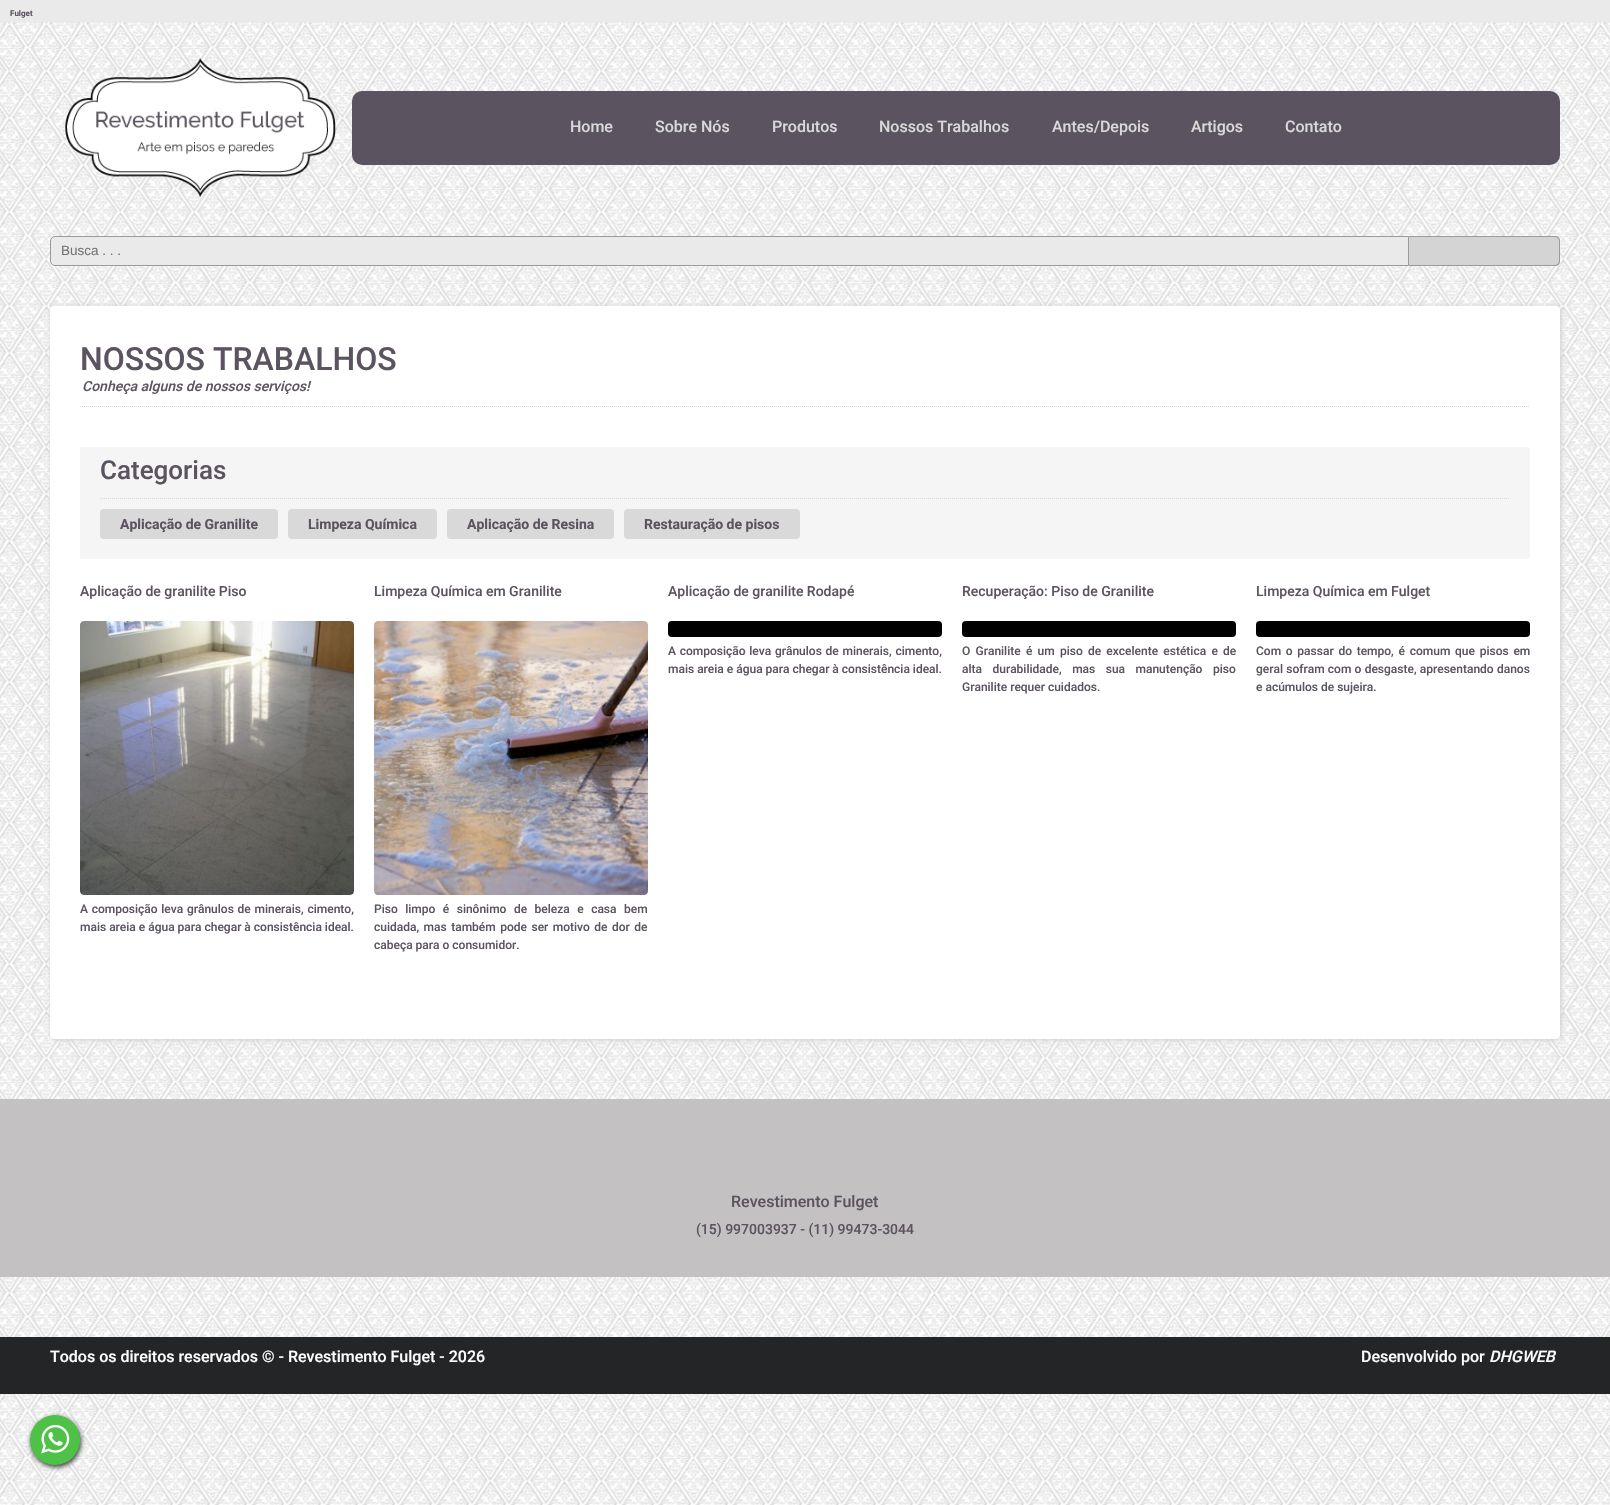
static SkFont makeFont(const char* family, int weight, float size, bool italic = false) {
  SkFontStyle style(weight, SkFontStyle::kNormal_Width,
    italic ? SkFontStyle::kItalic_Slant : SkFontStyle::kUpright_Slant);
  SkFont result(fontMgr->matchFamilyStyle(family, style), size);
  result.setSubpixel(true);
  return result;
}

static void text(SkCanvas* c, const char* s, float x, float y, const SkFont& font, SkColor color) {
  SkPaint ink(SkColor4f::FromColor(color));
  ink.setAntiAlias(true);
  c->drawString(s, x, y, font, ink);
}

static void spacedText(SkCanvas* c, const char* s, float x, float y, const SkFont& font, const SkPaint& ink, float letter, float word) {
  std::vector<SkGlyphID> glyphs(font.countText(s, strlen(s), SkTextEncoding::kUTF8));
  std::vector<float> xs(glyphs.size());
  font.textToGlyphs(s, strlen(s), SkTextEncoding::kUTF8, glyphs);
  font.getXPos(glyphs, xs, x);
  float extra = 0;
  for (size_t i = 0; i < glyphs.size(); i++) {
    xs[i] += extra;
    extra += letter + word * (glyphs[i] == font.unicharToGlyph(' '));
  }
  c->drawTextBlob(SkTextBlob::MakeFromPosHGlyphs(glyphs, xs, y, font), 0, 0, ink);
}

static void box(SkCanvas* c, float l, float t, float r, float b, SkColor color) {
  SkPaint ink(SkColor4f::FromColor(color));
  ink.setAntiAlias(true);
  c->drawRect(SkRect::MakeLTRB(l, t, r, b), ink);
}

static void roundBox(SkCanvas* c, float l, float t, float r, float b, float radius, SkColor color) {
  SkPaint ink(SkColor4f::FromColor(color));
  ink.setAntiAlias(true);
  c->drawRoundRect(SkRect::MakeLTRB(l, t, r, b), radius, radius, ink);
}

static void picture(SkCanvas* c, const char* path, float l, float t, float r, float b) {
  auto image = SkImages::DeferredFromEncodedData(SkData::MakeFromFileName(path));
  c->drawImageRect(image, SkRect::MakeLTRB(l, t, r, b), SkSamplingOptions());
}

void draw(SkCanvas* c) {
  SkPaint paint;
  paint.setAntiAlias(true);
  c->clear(0xffffffff);
  picture(c, "img_01.png", 0, 22, 1610, 1505);
  box(c, 0, 0, 1610, 22, 0xffeaeaea);
  SkFont face1 = makeFont("Roboto", 700, 8);
  text(c, "Fulget", 10, 16, face1, 0xff5c5360);
  picture(c, "img_02.png", 65, 58, 336, 198);
  roundBox(c, 352, 91, 1560, 165, 10, 0xff5c5360);
  SkFont face2 = makeFont("Roboto", 500, 16);
  text(c, "Home", 570, 132, face2, 0xffd9d9d9);
  text(c, "Sobre Nós", 655, 132, face2, 0xffd9d9d9);
  text(c, "Produtos", 772, 132, face2, 0xffd9d9d9);
  text(c, "Nossos Trabalhos", 879, 132, face2, 0xffd9d9d9);
  text(c, "Antes/Depois", 1052, 132, face2, 0xffd9d9d9);
  text(c, "Artigos", 1191, 132, face2, 0xffd9d9d9);
  text(c, "Contato", 1285, 132, face2, 0xffd9d9d9);
  paint.setColor(0xffeaeaea);
  c->drawPath(SkPathBuilder().moveTo(55, 236.5f).lineTo(1408.5f, 236.5f).lineTo(1408.5f, 265.5f).lineTo(55, 265.5f).cubicTo(52.5f, 265.5f, 50.5f, 263.5f, 50.5f, 261).lineTo(50.5f, 241).cubicTo(50.5f, 238.5f, 52.5f, 236.5f, 55, 236.5f).close().detach(), paint);
  paint.setStyle(SkPaint::kStroke_Style);
  paint.setStrokeWidth(1);
  paint.setColor(0xff989b9c);
  c->drawPath(SkPathBuilder().moveTo(55, 236.5f).lineTo(1408.5f, 236.5f).lineTo(1408.5f, 265.5f).lineTo(55, 265.5f).cubicTo(52.5f, 265.5f, 50.5f, 263.5f, 50.5f, 261).lineTo(50.5f, 241).cubicTo(50.5f, 238.5f, 52.5f, 236.5f, 55, 236.5f).close().detach(), paint);
  SkFont face3 = makeFont("Liberation Sans", 400, 13.5f);
  text(c, "Busca . . .", 61, 255, face3, 0xff757575);
  paint.setStyle(SkPaint::kFill_Style);
  paint.setColor(0xffd4d4d4);
  c->drawPath(SkPathBuilder().moveTo(1409, 236).lineTo(1555, 236).cubicTo(1558, 236, 1560, 238, 1560, 241).lineTo(1560, 261).cubicTo(1560, 264, 1558, 266, 1555, 266).lineTo(1409, 266).close().detach(), paint);
  paint.setColor(0xff989b9c);
  c->drawPath(SkPathBuilder(SkPathFillType::kEvenOdd).moveTo(1409, 236).lineTo(1555, 236).cubicTo(1558, 236, 1560, 238, 1560, 241).lineTo(1560, 261).cubicTo(1560, 264, 1558, 266, 1555, 266).lineTo(1409, 266).close().moveTo(1409, 237).lineTo(1555, 237).cubicTo(1557, 237, 1559, 239, 1559, 241).lineTo(1559, 261).cubicTo(1559, 263, 1557, 265, 1555, 265).lineTo(1409, 265).close().detach(), paint);
  paint.setColor(0xffcccccc);
  paint.setMaskFilter(SkMaskFilter::MakeBlur(kNormal_SkBlurStyle, 2.5f));
  c->drawRoundRect(SkRect::MakeLTRB(51, 307, 1561, 1040), 4, 4, paint);
  paint.setMaskFilter(nullptr);
  roundBox(c, 50, 306, 1560, 1039, 4, 0xffffffff);
  SkFont face4 = makeFont("Roboto", 500, 32);
  text(c, "NOSSOS TRABALHOS", 80, 370, face4, 0xff5c5360);
  SkFont face5 = makeFont("Roboto", 500, 14, true);
  text(c, "Conheça alguns de nossos serviços!", 82, 391, face5, 0xff5c5360);
  paint.setStyle(SkPaint::kStroke_Style);
  paint.setColor(0xffd9d9d9);
  paint.setPathEffect(SkDashPathEffect::Make({{1, 1}}, 0));
  c->drawPath(SkPathBuilder().moveTo(80, 406.5f).lineTo(1530, 406.5f).detach(), paint);
  paint.setPathEffect(nullptr);
  roundBox(c, 80, 447, 1530, 559, 2, 0xfff5f5f5);
  SkFont face6 = makeFont("Roboto", 500, 26);
  text(c, "Categorias", 100, 479, face6, 0xff5c5360);
  paint.setPathEffect(SkDashPathEffect::Make({{1, 1}}, 0));
  c->drawPath(SkPathBuilder().moveTo(100, 498.5f).lineTo(1510, 498.5f).detach(), paint);
  paint.setPathEffect(nullptr);
  roundBox(c, 100, 509, 278, 539, 4, 0xffd9d9d9);
  SkFont face7 = makeFont("Roboto", 700, 14);
  text(c, "Aplicação de Granilite", 120, 529, face7, 0xff5c5360);
  roundBox(c, 288, 509, 437, 539, 4, 0xffd9d9d9);
  text(c, "Limpeza Química", 308, 529, face7, 0xff5c5360);
  roundBox(c, 447, 509, 614, 539, 4, 0xffd9d9d9);
  text(c, "Aplicação de Resina", 467, 529, face7, 0xff5c5360);
  roundBox(c, 624, 509, 800, 539, 4, 0xffd9d9d9);
  text(c, "Restauração de pisos", 644, 529, face7, 0xff5c5360);
  SkFont face8 = makeFont("Roboto", 500, 14);
  text(c, "Aplicação de granilite Piso", 80, 596, face8, 0xff5c5360);
  picture(c, "img_03.png", 80, 621, 354, 895);
  SkFont face9 = makeFont("Roboto", 500, 12);
  paint.setStyle(SkPaint::kFill_Style);
  paint.setColor(0xff5c5360);
  spacedText(c, "A composição leva grânulos de minerais, cimento,", 80, 913, face9, paint, 0, 0.75f);
  text(c, "mais areia e água para chegar à consistência ideal.", 80, 931, face9, 0xff5c5360);
  text(c, "Limpeza Química em Granilite", 374, 596, face8, 0xff5c5360);
  picture(c, "img_04.png", 374, 621, 648, 895);
  spacedText(c, "Piso limpo é sinônimo de beleza e casa bem", 374, 913, face9, paint, 0, 4.5f);
  spacedText(c, "cuidada, mas também pode ser motivo de dor de", 374, 931, face9, paint, 0, 1.5f);
  text(c, "cabeça para o consumidor.", 374, 949, face9, 0xff5c5360);
  text(c, "Aplicação de granilite Rodapé", 668, 596, face8, 0xff5c5360);
  roundBox(c, 668, 621, 942, 637, 4, 0xff000000);
  spacedText(c, "A composição leva grânulos de minerais, cimento,", 668, 655, face9, paint, 0, 0.75f);
  text(c, "mais areia e água para chegar à consistência ideal.", 668, 673, face9, 0xff5c5360);
  text(c, "Recuperação: Piso de Granilite", 962, 596, face8, 0xff5c5360);
  roundBox(c, 962, 621, 1236, 637, 4, 0xff000000);
  spacedText(c, "O Granilite é um piso de excelente estética e de", 962, 655, face9, paint, 0, 2.25f);
  spacedText(c, "alta durabilidade, mas sua manutenção piso", 962, 673, face9, paint, 0, 7.5f);
  text(c, "Granilite requer cuidados.", 962, 691, face9, 0xff5c5360);
  text(c, "Limpeza Química em Fulget", 1256, 596, face8, 0xff5c5360);
  roundBox(c, 1256, 621, 1530, 637, 4, 0xff000000);
  spacedText(c, "Com o passar do tempo, é comum que pisos em", 1256, 655, face9, paint, 0, 1.75f);
  spacedText(c, "geral sofram com o desgaste, apresentando danos", 1256, 673, face9, paint, 0, 0.25f);
  text(c, "e acúmulos de sujeira.", 1256, 691, face9, 0xff5c5360);
  box(c, 0, 1099, 1610, 1277, 0xffc3c1c1);
  text(c, "Revestimento Fulget", 731, 1207, face2, 0xff5c5360);
  text(c, "(15) 997003937 - (11) 99473-3044", 696, 1234, face8, 0xff5c5360);
  box(c, 0, 1337, 1610, 1394, 0xff232526);
  text(c, "Todos os direitos reservados © - Revestimento Fulget - 2026", 50, 1362, face2, 0xffffffff);
  text(c, "Desenvolvido por", 1361, 1362, face2, 0xffffffff);
  SkFont face10 = makeFont("Roboto", 500, 16, true);
  text(c, "DHGWEB", 1489, 1362, face10, 0xffffffff);
  paint.setColor(0xff333333);
  paint.setMaskFilter(SkMaskFilter::MakeBlur(kNormal_SkBlurStyle, 2.5f));
  c->drawRoundRect(SkRect::MakeLTRB(31, 1417, 81, 1467), 25, 25, paint);
  paint.setMaskFilter(nullptr);
  paint.setColor(0xff4dc247);
  c->drawCircle(55, 1440, 25, paint);
  picture(c, "img_05.png", 41, 1425, 70, 1454);
}
